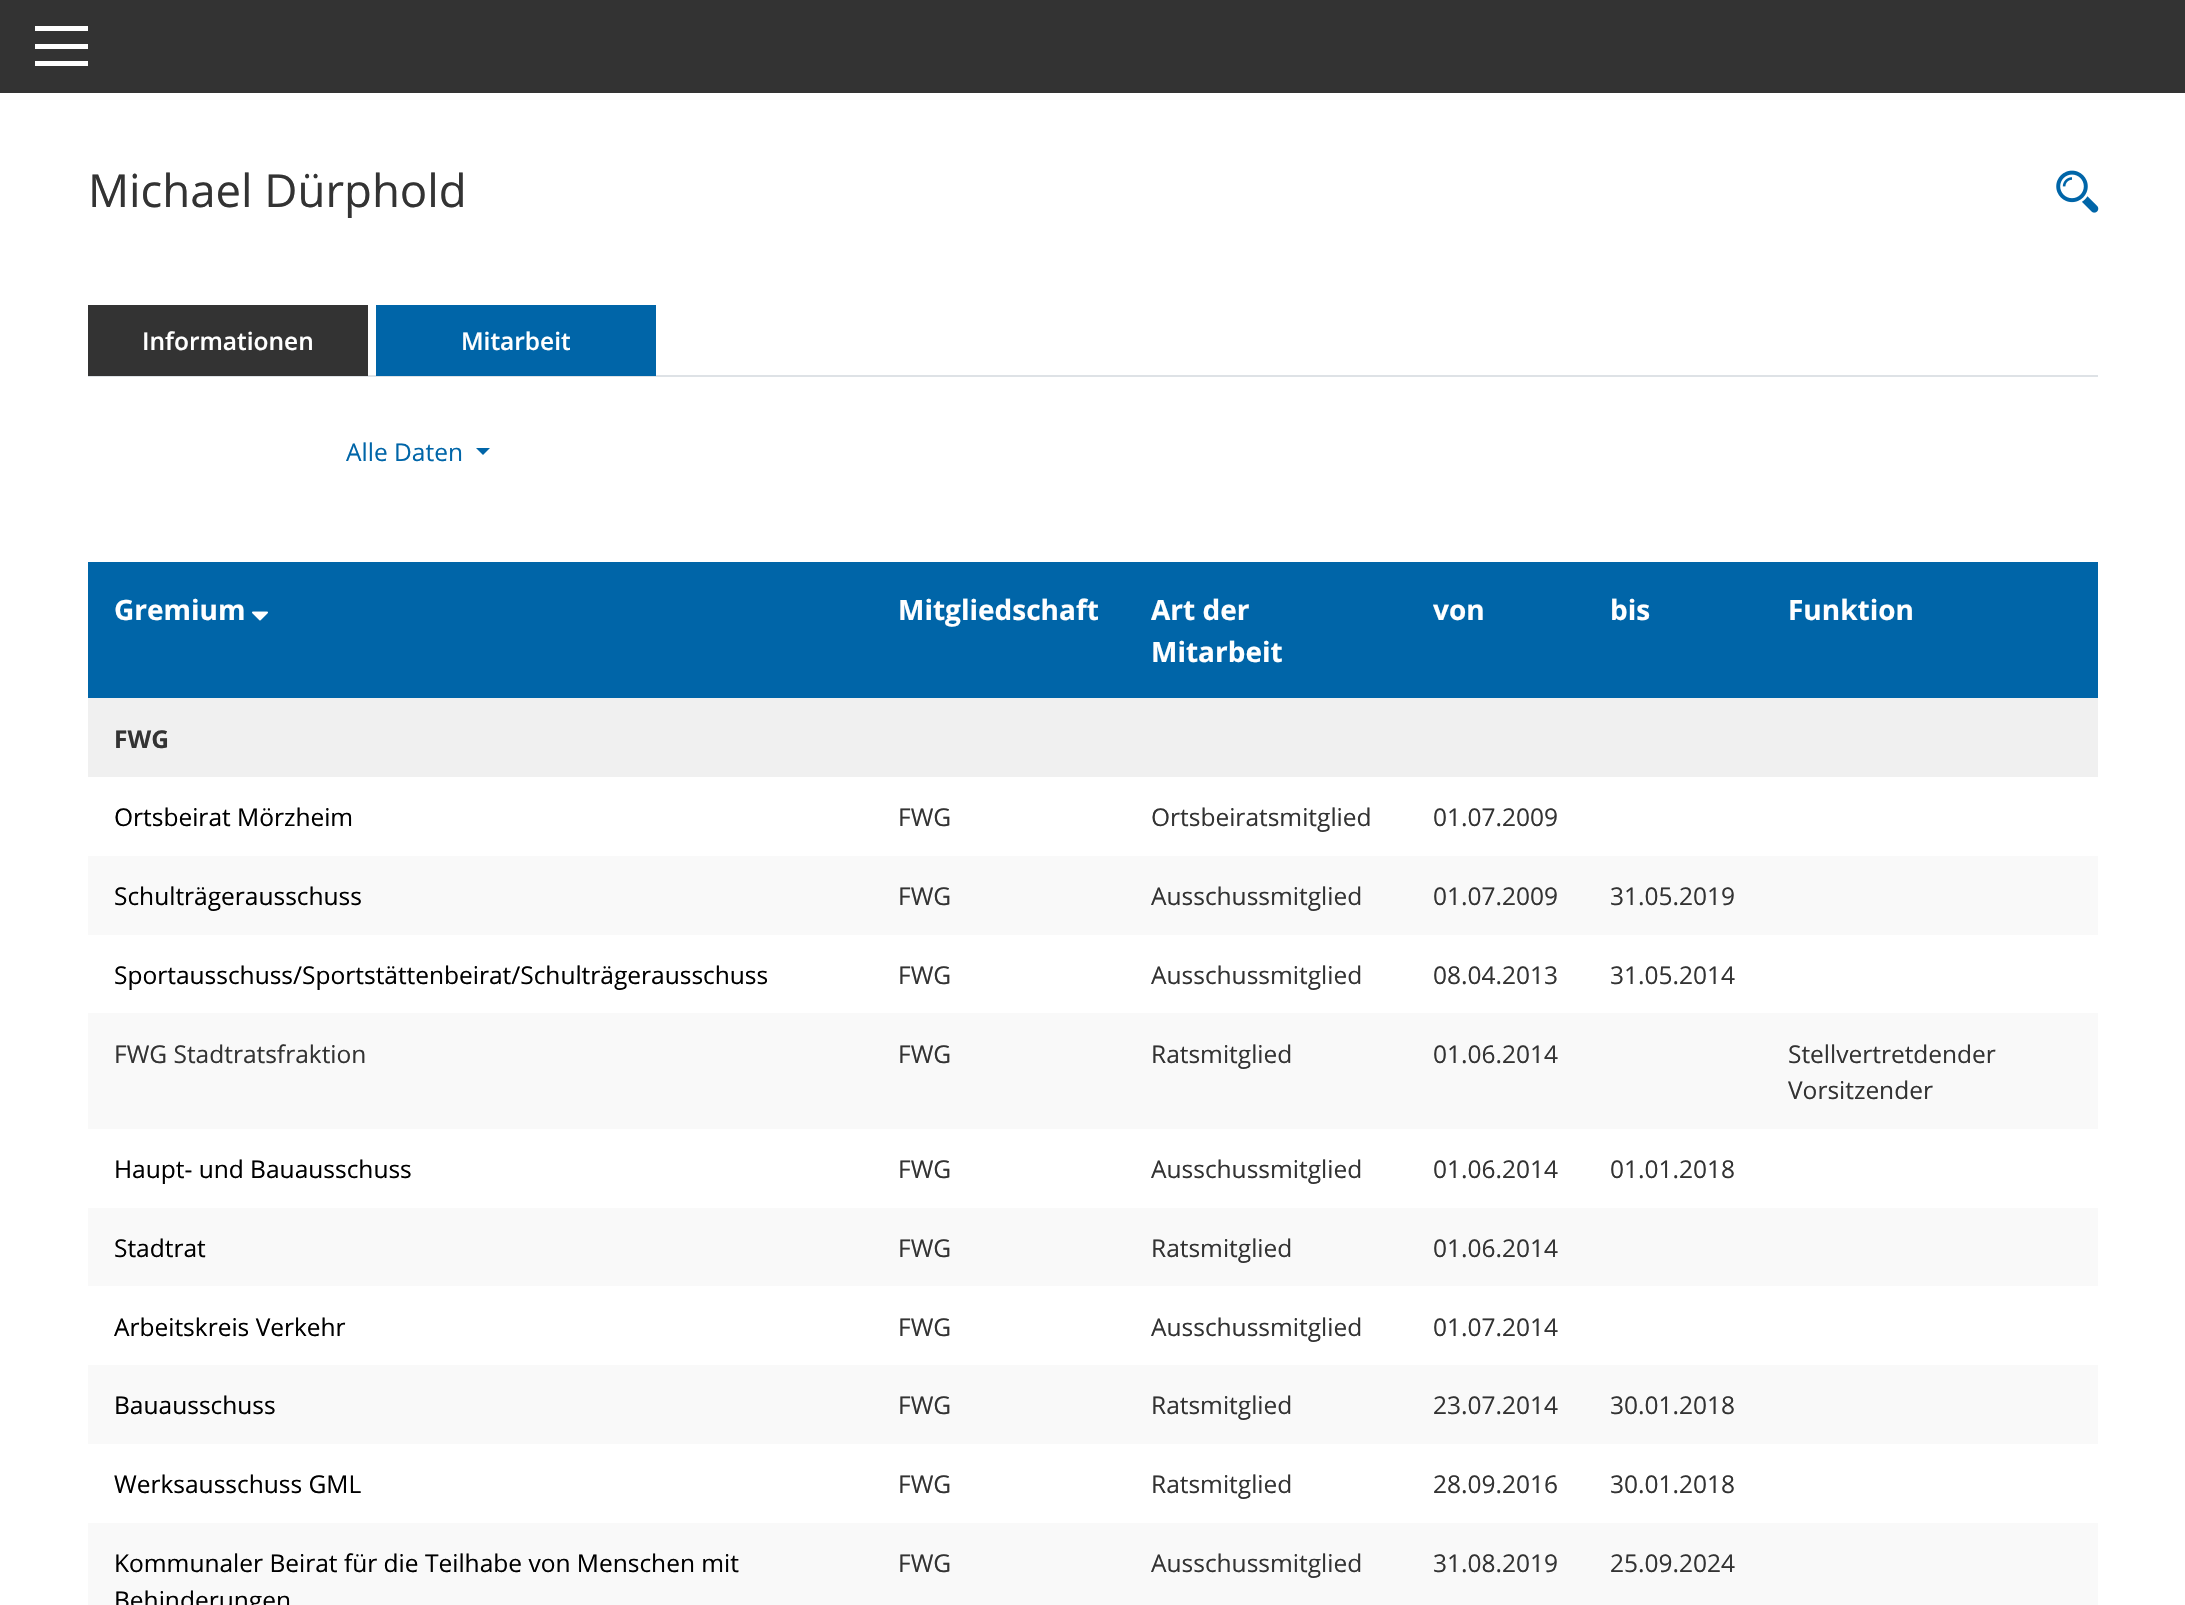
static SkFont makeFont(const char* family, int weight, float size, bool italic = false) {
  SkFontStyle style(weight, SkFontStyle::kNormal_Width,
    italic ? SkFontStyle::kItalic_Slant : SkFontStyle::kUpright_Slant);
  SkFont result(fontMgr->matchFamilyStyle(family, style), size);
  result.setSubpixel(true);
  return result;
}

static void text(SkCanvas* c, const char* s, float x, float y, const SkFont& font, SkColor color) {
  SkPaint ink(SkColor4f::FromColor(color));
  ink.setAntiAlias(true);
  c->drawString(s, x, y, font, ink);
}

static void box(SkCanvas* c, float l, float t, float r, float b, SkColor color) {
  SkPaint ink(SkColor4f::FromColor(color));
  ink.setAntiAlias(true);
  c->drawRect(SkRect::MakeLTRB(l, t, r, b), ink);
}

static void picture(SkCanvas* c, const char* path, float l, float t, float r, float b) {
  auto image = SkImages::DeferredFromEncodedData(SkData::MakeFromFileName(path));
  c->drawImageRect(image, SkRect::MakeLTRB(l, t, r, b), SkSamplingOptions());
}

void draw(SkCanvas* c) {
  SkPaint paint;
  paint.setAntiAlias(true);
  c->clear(0xffffffff);
  box(c, 0, 0, 2185, 93, 0xff333333);
  box(c, 35, 26, 88, 31, 0xffffffff);
  box(c, 35, 44, 88, 49, 0xffffffff);
  box(c, 35, 61, 88, 66, 0xffffffff);
  SkFont face1 = makeFont("Open Sans", 400, 45.5f);
  text(c, "Michael Dürphold", 88, 207, face1, 0xff333333);
  picture(c, "img_01.png", 2056, 170, 2099, 213);
  box(c, 88, 375, 2098, 377, 0xffdee2e6);
  box(c, 88, 305, 368, 376, 0xff333333);
  SkFont face2 = makeFont("Open Sans", 600, 24.5f);
  text(c, "Informationen", 142, 350, face2, 0xffffffff);
  box(c, 376, 305, 656, 376, 0xff0065a8);
  text(c, "Mitarbeit", 461, 350, face2, 0xffffffff);
  SkFont face3 = makeFont("Open Sans", 400, 24.5f);
  text(c, "Alle Daten", 346, 461, face3, 0xff0065a8);
  paint.setColor(0xff0065a8);
  c->drawPath(SkPathBuilder().moveTo(476, 448).lineTo(490, 448).lineTo(483, 455).close().detach(), paint);
  box(c, 88, 562, 2098, 698, 0xff0065a8);
  SkFont face4 = makeFont("Open Sans", 700, 28);
  text(c, "Gremium", 114, 620, face4, 0xffffffff);
  picture(c, "img_02.png", 252, 611, 268, 621);
  text(c, "Mitgliedschaft", 898, 620, face4, 0xffffffff);
  text(c, "Art der", 1151, 620, face4, 0xffffffff);
  text(c, "Mitarbeit", 1151, 662, face4, 0xffffffff);
  text(c, "von", 1433, 620, face4, 0xffffffff);
  text(c, "bis", 1610, 620, face4, 0xffffffff);
  text(c, "Funktion", 1788, 620, face4, 0xffffffff);
  box(c, 88, 698, 2098, 777, 0xfff0f0f0);
  SkFont face5 = makeFont("Open Sans", 700, 24.5f);
  text(c, "FWG", 114, 748, face5, 0xff333333);
  text(c, "Ortsbeirat Mörzheim", 114, 826, face3, 0xff000000);
  text(c, "FWG", 898, 826, face3, 0xff333333);
  text(c, "Ortsbeiratsmitglied", 1151, 826, face3, 0xff333333);
  text(c, "01.07.2009", 1433, 826, face3, 0xff333333);
  box(c, 88, 856, 2098, 935, 0xfff9f9f9);
  text(c, "Schulträgerausschuss", 114, 905, face3, 0xff000000);
  text(c, "FWG", 898, 905, face3, 0xff333333);
  text(c, "Ausschussmitglied", 1151, 905, face3, 0xff333333);
  text(c, "01.07.2009", 1433, 905, face3, 0xff333333);
  text(c, "31.05.2019", 1610, 905, face3, 0xff333333);
  text(c, "Sportausschuss/Sportstättenbeirat/Schulträgerausschuss", 114, 984, face3, 0xff000000);
  text(c, "FWG", 898, 984, face3, 0xff333333);
  text(c, "Ausschussmitglied", 1151, 984, face3, 0xff333333);
  text(c, "08.04.2013", 1433, 984, face3, 0xff333333);
  text(c, "31.05.2014", 1610, 984, face3, 0xff333333);
  box(c, 88, 1013, 2098, 1129, 0xfff9f9f9);
  text(c, "FWG Stadtratsfraktion", 114, 1063, face3, 0xff333333);
  text(c, "FWG", 898, 1063, face3, 0xff333333);
  text(c, "Ratsmitglied", 1151, 1063, face3, 0xff333333);
  text(c, "01.06.2014", 1433, 1063, face3, 0xff333333);
  text(c, "Stellvertretdender", 1788, 1063, face3, 0xff333333);
  text(c, "Vorsitzender", 1788, 1099, face3, 0xff333333);
  text(c, "Haupt- und Bauausschuss", 114, 1178, face3, 0xff000000);
  text(c, "FWG", 898, 1178, face3, 0xff333333);
  text(c, "Ausschussmitglied", 1151, 1178, face3, 0xff333333);
  text(c, "01.06.2014", 1433, 1178, face3, 0xff333333);
  text(c, "01.01.2018", 1610, 1178, face3, 0xff333333);
  box(c, 88, 1208, 2098, 1286, 0xfff9f9f9);
  text(c, "Stadtrat", 114, 1257, face3, 0xff000000);
  text(c, "FWG", 898, 1257, face3, 0xff333333);
  text(c, "Ratsmitglied", 1151, 1257, face3, 0xff333333);
  text(c, "01.06.2014", 1433, 1257, face3, 0xff333333);
  text(c, "Arbeitskreis Verkehr", 114, 1336, face3, 0xff000000);
  text(c, "FWG", 898, 1336, face3, 0xff333333);
  text(c, "Ausschussmitglied", 1151, 1336, face3, 0xff333333);
  text(c, "01.07.2014", 1433, 1336, face3, 0xff333333);
  box(c, 88, 1365, 2098, 1444, 0xfff9f9f9);
  text(c, "Bauausschuss", 114, 1414, face3, 0xff000000);
  text(c, "FWG", 898, 1414, face3, 0xff333333);
  text(c, "Ratsmitglied", 1151, 1414, face3, 0xff333333);
  text(c, "23.07.2014", 1433, 1414, face3, 0xff333333);
  text(c, "30.01.2018", 1610, 1414, face3, 0xff333333);
  text(c, "Werksausschuss GML", 114, 1493, face3, 0xff000000);
  text(c, "FWG", 898, 1493, face3, 0xff333333);
  text(c, "Ratsmitglied", 1151, 1493, face3, 0xff333333);
  text(c, "28.09.2016", 1433, 1493, face3, 0xff333333);
  text(c, "30.01.2018", 1610, 1493, face3, 0xff333333);
  box(c, 88, 1523, 2098, 1605, 0xfff9f9f9);
  text(c, "Kommunaler Beirat für die Teilhabe von Menschen mit", 114, 1572, face3, 0xff000000);
  text(c, "Behinderungen", 114, 1609, face3, 0xff000000);
  text(c, "FWG", 898, 1572, face3, 0xff333333);
  text(c, "Ausschussmitglied", 1151, 1572, face3, 0xff333333);
  text(c, "31.08.2019", 1433, 1572, face3, 0xff333333);
  text(c, "25.09.2024", 1610, 1572, face3, 0xff333333);
}
